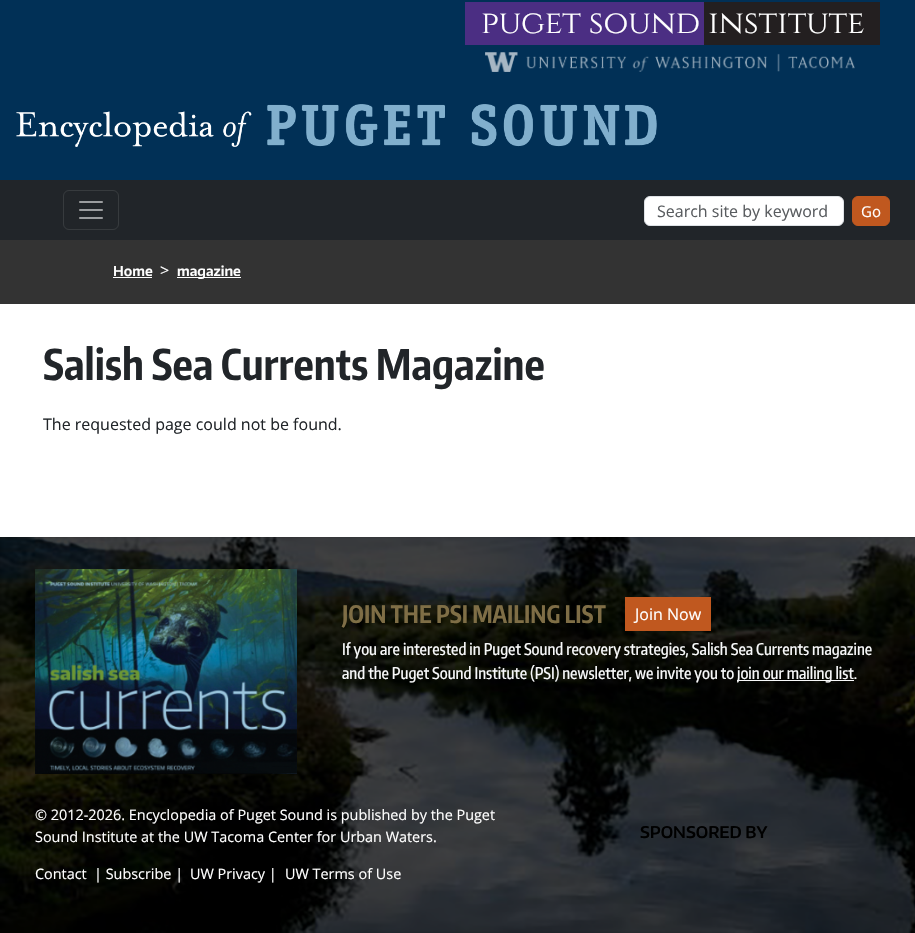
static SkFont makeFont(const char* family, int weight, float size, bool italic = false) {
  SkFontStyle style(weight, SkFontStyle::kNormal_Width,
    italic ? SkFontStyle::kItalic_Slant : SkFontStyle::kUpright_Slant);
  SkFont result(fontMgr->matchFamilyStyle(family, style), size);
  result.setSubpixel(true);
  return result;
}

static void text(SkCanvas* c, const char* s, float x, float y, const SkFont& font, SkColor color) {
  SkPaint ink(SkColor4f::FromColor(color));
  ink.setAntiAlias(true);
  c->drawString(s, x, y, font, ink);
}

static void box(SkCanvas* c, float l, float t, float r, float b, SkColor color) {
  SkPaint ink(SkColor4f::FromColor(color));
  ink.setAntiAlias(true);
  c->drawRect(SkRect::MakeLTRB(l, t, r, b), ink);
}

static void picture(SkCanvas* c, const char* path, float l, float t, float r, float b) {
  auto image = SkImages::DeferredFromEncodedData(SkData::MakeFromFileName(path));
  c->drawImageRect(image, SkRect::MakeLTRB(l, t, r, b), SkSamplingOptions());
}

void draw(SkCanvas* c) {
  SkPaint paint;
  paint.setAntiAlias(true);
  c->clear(0xffffffff);
  box(c, 0, 0, 915, 180, 0xff013056);
  box(c, 465, 2, 704, 45, 0xff4b2e83);
  SkFont face1 = makeFont("Cinzel", 400, 32);
  text(c, "puget sound", 481, 33, face1, 0xffffffff);
  box(c, 704, 2, 880, 45, 0xff231f20);
  text(c, "institute", 708, 33, face1, 0xffffffff);
  picture(c, "img_01.png", 485, 52, 855, 72);
  picture(c, "img_02.png", 16, 104, 657, 147);
  box(c, 0, 180, 915, 240, 0xff212529);
  paint.setStyle(SkPaint::kStroke_Style);
  paint.setStrokeWidth(1);
  paint.setColor(0xff373b3e);
  c->drawRoundRect(SkRect::MakeLTRB(63.5f, 190.5f, 118.5f, 229.5f), 5.5f, 5.5f, paint);
  picture(c, "img_03.png", 79, 201, 103, 219);
  paint.setStyle(SkPaint::kFill_Style);
  paint.setColor(0xffffffff);
  c->drawRoundRect(SkRect::MakeLTRB(644.5f, 196.5f, 843.5f, 225.5f), 5.5f, 5.5f, paint);
  paint.setStyle(SkPaint::kStroke_Style);
  paint.setColor(0xffdee2e6);
  c->drawRoundRect(SkRect::MakeLTRB(644.5f, 196.5f, 843.5f, 225.5f), 5.5f, 5.5f, paint);
  SkFont face2 = makeFont("Open Sans", 400, 16);
  text(c, "Search site by keyword", 657, 217, face2, 0xff595c5f);
  paint.setStyle(SkPaint::kFill_Style);
  paint.setColor(0xffc0581f);
  c->drawRoundRect(SkRect::MakeLTRB(852.5f, 196.5f, 889.5f, 225.5f), 5.5f, 5.5f, paint);
  paint.setStyle(SkPaint::kStroke_Style);
  c->drawRoundRect(SkRect::MakeLTRB(852.5f, 196.5f, 889.5f, 225.5f), 5.5f, 5.5f, paint);
  SkFont face3 = makeFont("Open Sans", 400, 15);
  text(c, "Go", 861, 217, face3, 0xffffffff);
  box(c, 0, 240, 915, 304, 0xff333333);
  SkFont face4 = makeFont("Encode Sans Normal", 600, 13.5f);
  text(c, "Home", 113, 276, face4, 0xffffffff);
  box(c, 113, 277, 152, 278, 0xffffffff);
  text(c, ">", 160, 276, face2, 0xffffffff);
  box(c, 177, 277, 241, 278, 0xffffffff);
  text(c, "magazine", 177, 276, face4, 0xffffffff);
  SkFont face5 = makeFont("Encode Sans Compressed", 700, 42);
  text(c, "Salish Sea Currents Magazine", 43, 380, face5, 0xff212529);
  text(c, "The requested page could not be found.", 43, 430, face2, 0xff212529);
  picture(c, "img_04.png", 0, 537, 915, 933);
  picture(c, "img_05.png", 35, 569, 297, 774);
  SkFont face6 = makeFont("Encode Sans Compressed", 700, 24);
  text(c, "JOIN THE PSI MAILING LIST", 342, 623, face6, 0xff7f6e46);
  box(c, 625, 597, 711, 631, 0xffc0581f);
  text(c, "Join Now", 635, 620, face2, 0xffffffff);
  SkFont face7 = makeFont("Encode Sans Compressed", 500, 16);
  text(c, "If you are interested in Puget Sound recovery strategies, Salish Sea Currents magazine", 342, 655, face7, 0xfff8f9fa);
  text(c, "and the Puget Sound Institute (PSI) newsletter, we invite you to", 342, 679, face7, 0xfff8f9fa);
  box(c, 737, 680, 854, 681, 0xfff8f9fa);
  text(c, "join our mailing list.", 737, 679, face7, 0xfff8f9fa);
  SkFont face8 = makeFont("Open Sans", 400, 14.4f);
  text(c, "© 2012-2026. Encyclopedia of Puget Sound is published by the Puget", 35, 820, face8, 0xffffffff);
  text(c, "Sound Institute at the UW Tacoma Center for Urban Waters.", 35, 842, face8, 0xffffffff);
  text(c, "Contact", 35, 879, face8, 0xffffffff);
  text(c, "| Subscribe |", 94, 879, face8, 0xffffffff);
  text(c, "UW Privacy |", 190, 879, face8, 0xffffffff);
  text(c, "UW Terms of Use", 285, 879, face8, 0xffffffff);
  SkFont face9 = makeFont("Encode Sans Normal", 600, 16);
  text(c, "SPONSORED BY", 640, 838, face9, 0xff000000);
}
